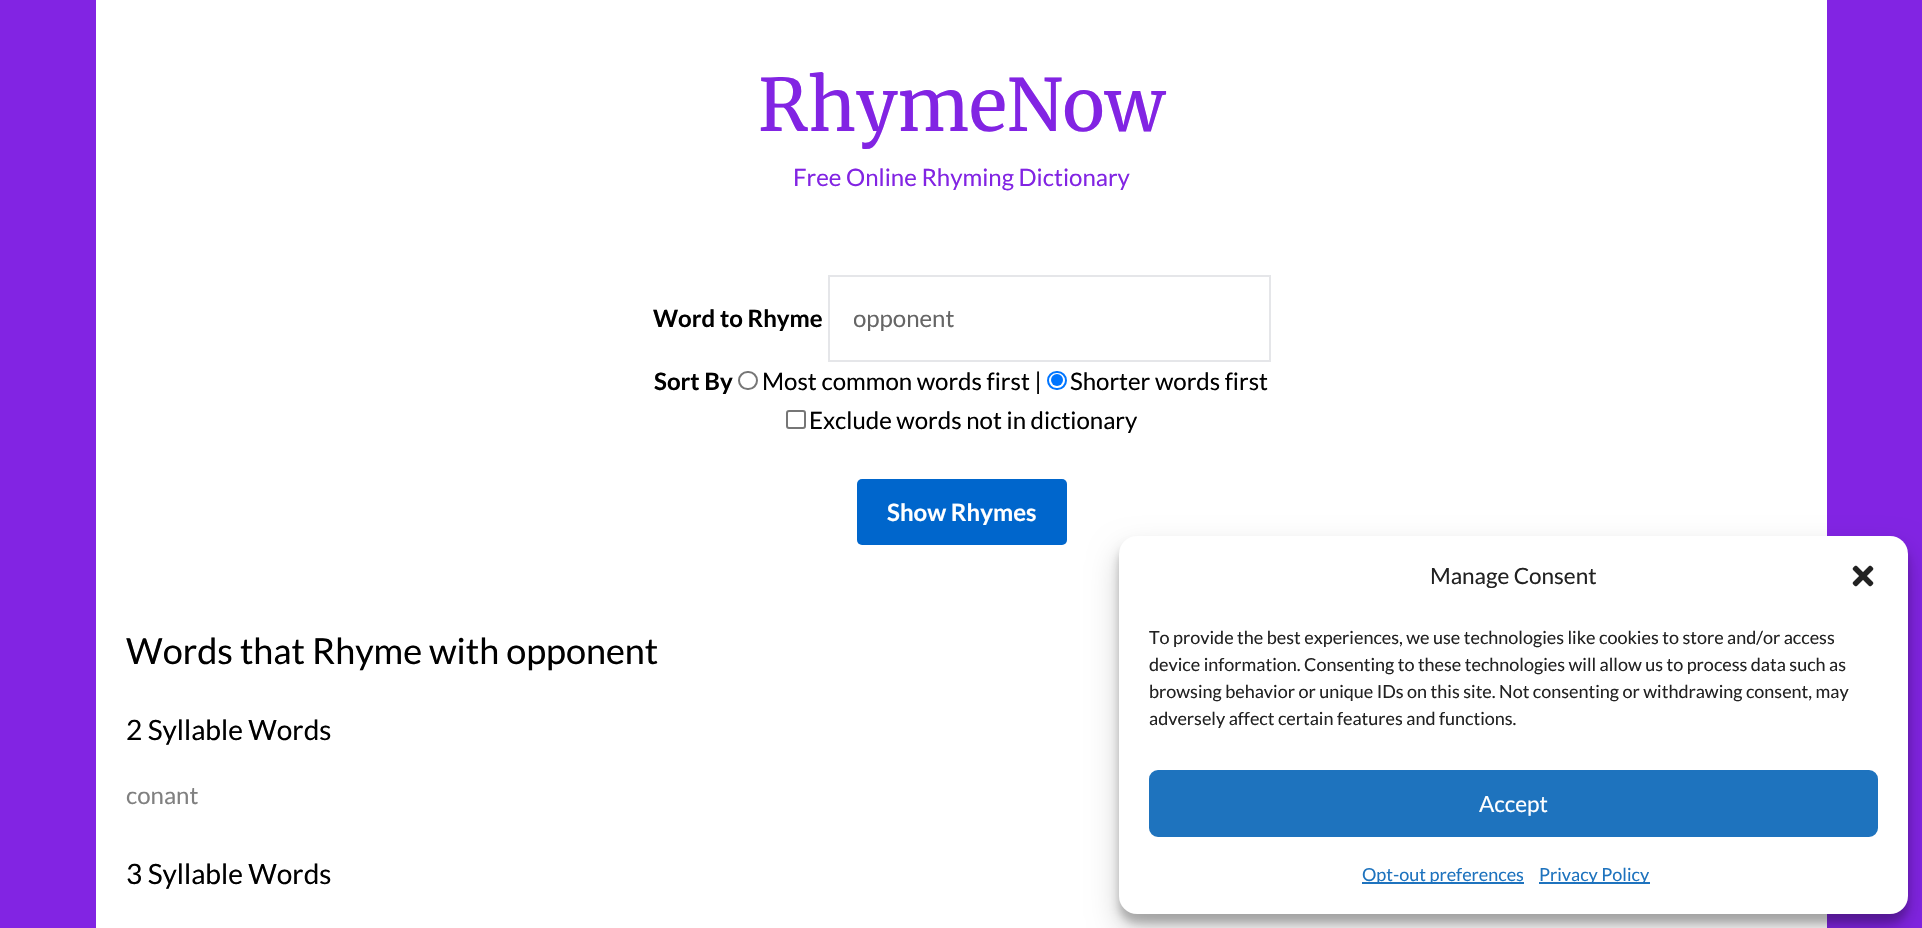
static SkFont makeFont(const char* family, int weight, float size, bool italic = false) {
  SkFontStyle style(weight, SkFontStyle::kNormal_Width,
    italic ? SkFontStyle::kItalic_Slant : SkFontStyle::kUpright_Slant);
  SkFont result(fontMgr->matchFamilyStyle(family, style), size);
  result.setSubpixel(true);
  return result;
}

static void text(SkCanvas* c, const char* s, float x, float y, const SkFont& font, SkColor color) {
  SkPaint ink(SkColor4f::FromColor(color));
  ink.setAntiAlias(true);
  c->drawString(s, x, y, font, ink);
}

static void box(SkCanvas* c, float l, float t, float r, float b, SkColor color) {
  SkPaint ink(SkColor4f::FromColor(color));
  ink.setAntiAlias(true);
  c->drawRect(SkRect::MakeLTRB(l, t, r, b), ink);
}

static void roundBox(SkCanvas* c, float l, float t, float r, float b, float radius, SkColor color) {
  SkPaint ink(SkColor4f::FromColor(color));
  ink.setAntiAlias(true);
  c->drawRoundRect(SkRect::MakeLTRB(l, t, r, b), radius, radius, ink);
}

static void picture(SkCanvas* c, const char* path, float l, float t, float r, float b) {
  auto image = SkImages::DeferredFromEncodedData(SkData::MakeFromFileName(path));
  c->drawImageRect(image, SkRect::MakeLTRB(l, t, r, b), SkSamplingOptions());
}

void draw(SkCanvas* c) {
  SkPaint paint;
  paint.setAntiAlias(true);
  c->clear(0xff8224e3);
  box(c, 96, 0, 1827, 928, 0xffffffff);
  SkFont face1 = makeFont("Merriweather", 400, 72);
  text(c, "RhymeNow", 758, 131, face1, 0xff8224e3);
  SkFont face2 = makeFont("Lato", 400, 24);
  text(c, "Free Online Rhyming Dictionary", 793, 186, face2, 0xff8224e3);
  SkFont face3 = makeFont("Lato", 700, 24);
  text(c, "Word to Rhyme", 653, 327, face3, 0xff000000);
  paint.setStyle(SkPaint::kStroke_Style);
  paint.setStrokeWidth(2);
  paint.setColor(0xffe5e6e9);
  c->drawRect(SkRect::MakeLTRB(829, 276, 1270, 361), paint);
  c->save();
  c->clipRect(SkRect::MakeLTRB(854, 300, 1245, 336));
  text(c, "opponent", 853, 327, face2, 0xff666666);
  c->restore();
  text(c, "Sort By", 654, 390, face3, 0xff000000);
  paint.setColor(0xff767676);
  c->drawRoundRect(SkRect::MakeLTRB(739, 372, 757, 389), 8.5f, 8.5f, paint);
  text(c, "Most common words first |", 762, 390, face2, 0xff000000);
  paint.setColor(0xff0075ff);
  c->drawRoundRect(SkRect::MakeLTRB(1048, 372, 1066, 389), 8.5f, 8.5f, paint);
  paint.setStyle(SkPaint::kFill_Style);
  c->drawCircle(1057, 380, 6, paint);
  text(c, "Shorter words first", 1070, 390, face2, 0xff000000);
  paint.setStyle(SkPaint::kStroke_Style);
  paint.setColor(0xff767676);
  c->drawRoundRect(SkRect::MakeLTRB(787, 411, 805, 428), 2, 2, paint);
  text(c, "Exclude words not in dictionary", 809, 429, face2, 0xff000000);
  roundBox(c, 857, 479, 1067, 545, 5, 0xff0066cc);
  text(c, "Show Rhymes", 887, 521, face3, 0xffffffff);
  SkFont face4 = makeFont("Lato", 400, 36);
  text(c, "Words that Rhyme with opponent", 126, 664, face4, 0xff000000);
  SkFont face5 = makeFont("Lato", 400, 28);
  text(c, "2 Syllable Words", 126, 740, face5, 0xff000000);
  text(c, "conant", 126, 804, face2, 0xff808080);
  text(c, "3 Syllable Words", 126, 884, face5, 0xff000000);
  paint.setStyle(SkPaint::kFill_Style);
  paint.setColor(0x3b000000);
  paint.setMaskFilter(SkMaskFilter::MakeBlur(kNormal_SkBlurStyle, 4.5f));
  c->drawRoundRect(SkRect::MakeLTRB(1119, 545, 1908, 923), 18, 18, paint);
  paint.setMaskFilter(nullptr);
  paint.setColor(0x30000000);
  paint.setMaskFilter(SkMaskFilter::MakeBlur(kNormal_SkBlurStyle, 15));
  c->drawRoundRect(SkRect::MakeLTRB(1119, 551, 1908, 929), 18, 18, paint);
  paint.setMaskFilter(nullptr);
  roundBox(c, 1119, 536, 1908, 914, 18, 0xffffffff);
  SkFont face6 = makeFont("Lato", 400, 22.5f);
  text(c, "Manage Consent", 1430, 584, face6, 0xff222222);
  picture(c, "img_01.png", 1852, 565, 1874, 587);
  SkFont face7 = makeFont("Lato", 400, 18);
  text(c, "To provide the best experiences, we use technologies like cookies to store and/or access", 1149, 644, face7, 0xff222222);
  text(c, "device information. Consenting to these technologies will allow us to process data such as", 1149, 671, face7, 0xff222222);
  text(c, "browsing behavior or unique IDs on this site. Not consenting or withdrawing consent, may", 1149, 698, face7, 0xff222222);
  text(c, "adversely affect certain features and functions.", 1149, 725, face7, 0xff222222);
  paint.setColor(0xff1e73be);
  c->drawRoundRect(SkRect::MakeLTRB(1150, 771, 1877, 836), 8, 8, paint);
  paint.setStyle(SkPaint::kStroke_Style);
  c->drawRoundRect(SkRect::MakeLTRB(1150, 771, 1877, 836), 8, 8, paint);
  text(c, "Accept", 1479, 812, face6, 0xffffffff);
  box(c, 1362, 882, 1524, 884, 0xff1e73be);
  text(c, "Opt-out preferences", 1362, 881, face7, 0xff1e73be);
  box(c, 1539, 882, 1650, 884, 0xff1e73be);
  text(c, "Privacy Policy", 1539, 881, face7, 0xff1e73be);
}
